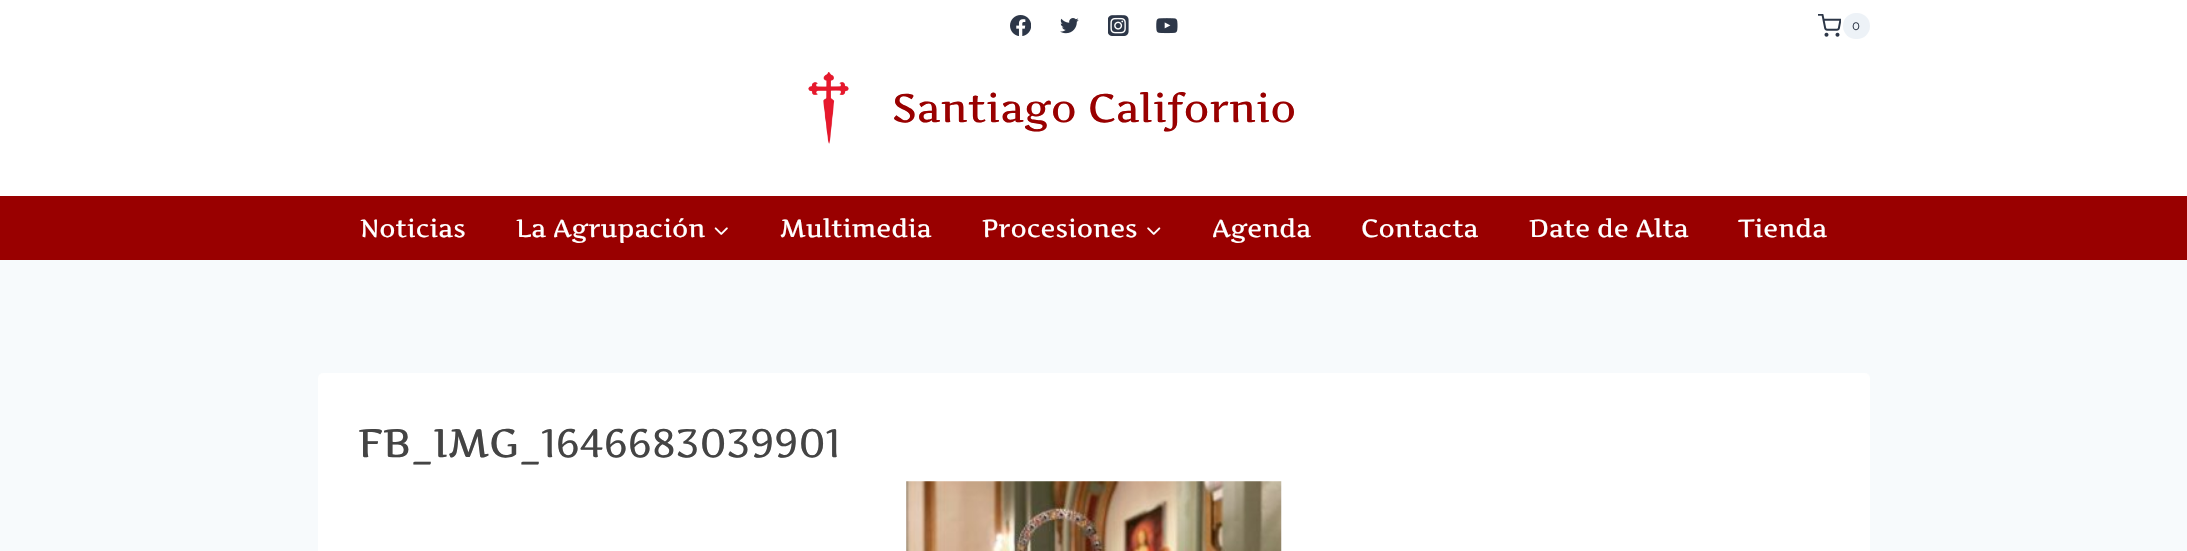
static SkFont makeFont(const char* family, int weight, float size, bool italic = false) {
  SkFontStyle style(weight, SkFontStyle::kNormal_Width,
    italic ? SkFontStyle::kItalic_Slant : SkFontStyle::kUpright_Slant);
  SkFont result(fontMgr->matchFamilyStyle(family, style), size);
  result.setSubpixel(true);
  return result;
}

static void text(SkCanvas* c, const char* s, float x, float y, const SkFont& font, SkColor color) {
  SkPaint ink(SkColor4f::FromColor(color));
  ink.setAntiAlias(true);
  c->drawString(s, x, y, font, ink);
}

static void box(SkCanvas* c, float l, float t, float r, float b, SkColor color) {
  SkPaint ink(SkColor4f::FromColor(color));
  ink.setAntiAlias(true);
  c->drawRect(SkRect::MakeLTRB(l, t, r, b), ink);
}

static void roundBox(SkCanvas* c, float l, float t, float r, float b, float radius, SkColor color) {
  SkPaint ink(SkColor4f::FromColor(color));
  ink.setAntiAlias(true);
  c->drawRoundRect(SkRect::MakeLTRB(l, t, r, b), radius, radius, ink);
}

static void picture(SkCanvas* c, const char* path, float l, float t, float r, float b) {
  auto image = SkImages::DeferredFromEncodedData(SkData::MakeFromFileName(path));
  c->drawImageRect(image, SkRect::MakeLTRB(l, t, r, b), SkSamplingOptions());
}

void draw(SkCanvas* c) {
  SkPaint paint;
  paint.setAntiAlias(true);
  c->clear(0xfff7fafc);
  box(c, 0, 0, 2187, 196, 0xffffffff);
  picture(c, "img_01.png", 1010, 15, 1031, 36);
  picture(c, "img_02.png", 1060, 18, 1079, 34);
  picture(c, "img_03.png", 1108, 15, 1129, 36);
  picture(c, "img_04.png", 1156, 18, 1178, 34);
  picture(c, "img_05.png", 1818, 14, 1841, 37);
  roundBox(c, 1843, 13, 1870, 39, 13, 0xffedf2f7);
  SkFont face1 = makeFont("Raleway", 400, 13);
  text(c, "0", 1852, 30, face1, 0xff2d3748);
  picture(c, "img_06.png", 808, 72, 849, 144);
  SkFont face2 = makeFont("Artifika", 400, 40);
  text(c, "Santiago Californio", 892, 122, face2, 0xff990000);
  box(c, 0, 196, 2187, 260, 0xff990000);
  SkFont face3 = makeFont("Artifika", 400, 25);
  text(c, "Noticias", 360, 237, face3, 0xffffffff);
  text(c, "La Agrupación", 516, 237, face3, 0xffffffff);
  picture(c, "img_07.png", 714, 227, 728, 235);
  text(c, "Multimedia", 780, 237, face3, 0xffffffff);
  text(c, "Procesiones", 982, 237, face3, 0xffffffff);
  picture(c, "img_08.png", 1147, 227, 1161, 235);
  text(c, "Agenda", 1212, 237, face3, 0xffffffff);
  text(c, "Contacta", 1361, 237, face3, 0xffffffff);
  text(c, "Date de Alta", 1529, 237, face3, 0xffffffff);
  text(c, "Tienda", 1738, 237, face3, 0xffffffff);
  roundBox(c, 318, 373, 1870, 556, 5, 0xffffffff);
  text(c, "FB_IMG_1646683039901", 358, 457, face2, 0xff444444);
  picture(c, "img_09.png", 906, 481, 1282, 551);
}
